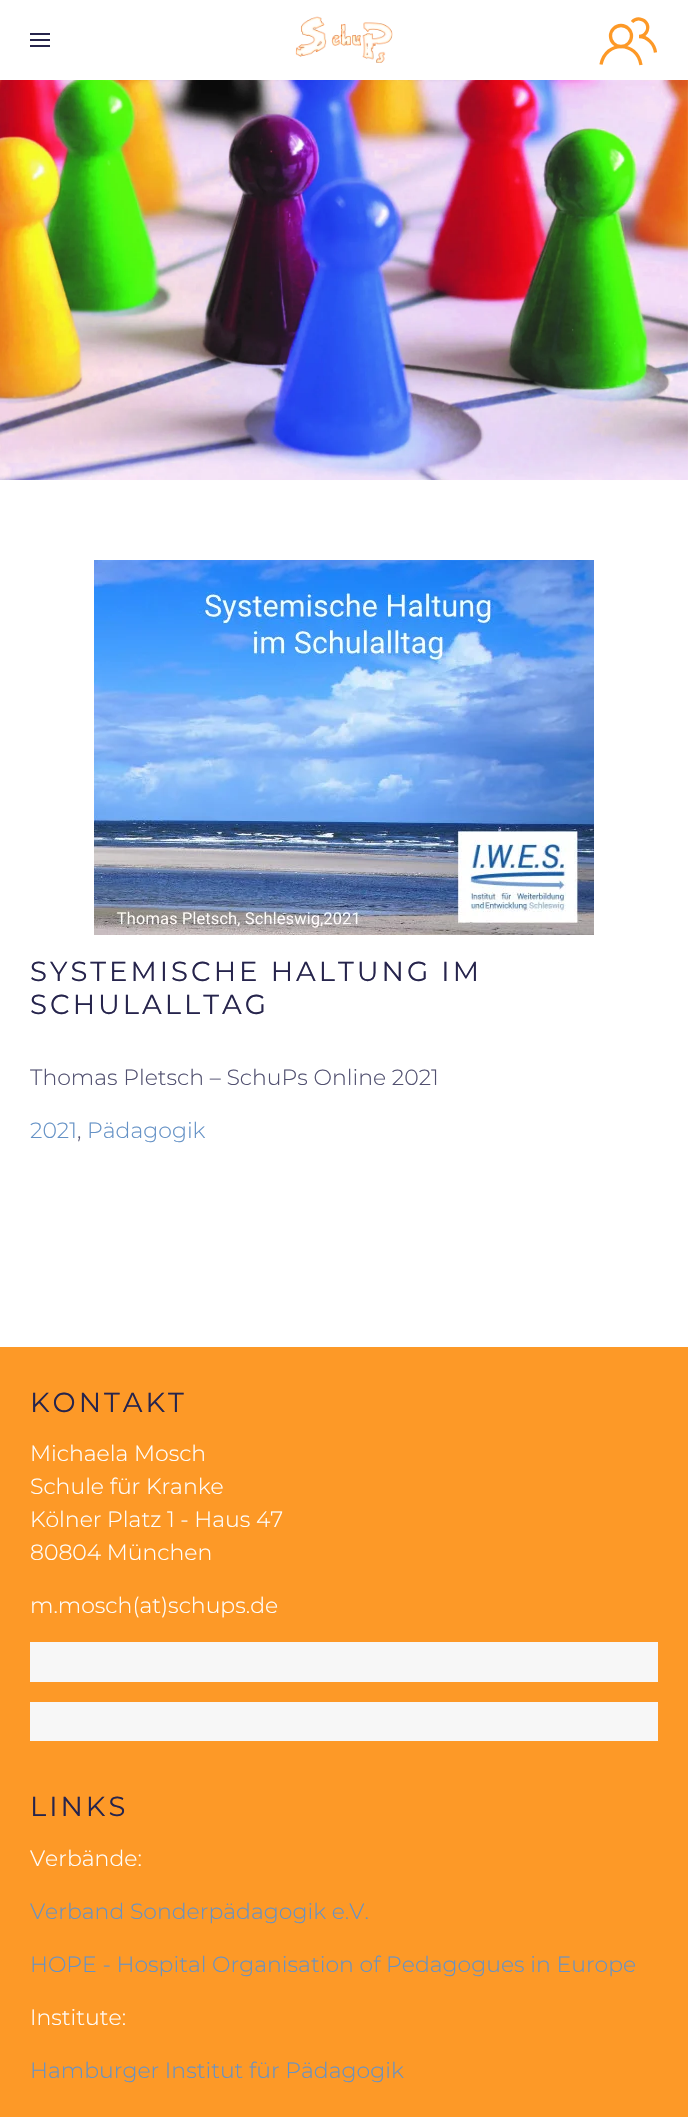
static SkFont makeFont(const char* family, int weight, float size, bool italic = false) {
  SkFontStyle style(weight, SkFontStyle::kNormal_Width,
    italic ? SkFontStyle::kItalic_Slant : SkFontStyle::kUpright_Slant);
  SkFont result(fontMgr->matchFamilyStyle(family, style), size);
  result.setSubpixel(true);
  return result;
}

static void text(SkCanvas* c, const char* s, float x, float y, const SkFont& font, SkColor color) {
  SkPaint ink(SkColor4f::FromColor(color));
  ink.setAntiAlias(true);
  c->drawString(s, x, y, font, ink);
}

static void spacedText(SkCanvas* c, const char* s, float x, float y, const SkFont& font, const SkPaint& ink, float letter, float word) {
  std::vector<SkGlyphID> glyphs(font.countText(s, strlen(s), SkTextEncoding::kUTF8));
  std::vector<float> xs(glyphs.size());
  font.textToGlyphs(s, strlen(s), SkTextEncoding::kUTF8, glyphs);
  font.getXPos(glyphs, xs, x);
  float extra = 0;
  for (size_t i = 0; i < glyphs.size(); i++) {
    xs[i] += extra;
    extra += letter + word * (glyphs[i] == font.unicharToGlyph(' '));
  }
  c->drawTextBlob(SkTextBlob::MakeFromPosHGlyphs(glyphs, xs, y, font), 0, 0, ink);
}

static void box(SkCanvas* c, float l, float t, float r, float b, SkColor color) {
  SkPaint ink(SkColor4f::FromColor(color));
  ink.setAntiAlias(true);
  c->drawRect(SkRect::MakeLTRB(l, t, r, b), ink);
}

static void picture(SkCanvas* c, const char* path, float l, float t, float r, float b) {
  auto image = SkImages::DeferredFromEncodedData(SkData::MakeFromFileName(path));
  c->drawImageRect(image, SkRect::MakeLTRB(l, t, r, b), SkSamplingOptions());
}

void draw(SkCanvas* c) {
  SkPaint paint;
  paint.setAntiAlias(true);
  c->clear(0xffffffff);
  box(c, 30, 33, 50, 35, 0xff26244c);
  box(c, 30, 39, 50, 41, 0xff26244c);
  box(c, 30, 45, 50, 47, 0xff26244c);
  picture(c, "img_01.png", 295, 16, 393, 63);
  paint.setStyle(SkPaint::kStroke_Style);
  paint.setStrokeWidth(3.3f);
  paint.setColor(0xfffd9927);
  c->drawCircle(621, 36, 10.5f, paint);
  c->drawPath(SkPathBuilder().moveTo(601, 64.5f).cubicTo(606, 40, 637, 41, 641, 65).moveTo(632, 22).cubicTo(636.5f, 17, 644, 18.5f, 647, 24).cubicTo(649.5f, 30, 645, 36.5f, 639, 36.5f).cubicTo(647.5f, 36.5f, 654.5f, 44, 655.5f, 52.5f).detach(), paint);
  picture(c, "img_02.png", 0, 80, 688, 480);
  picture(c, "img_03.png", 94, 560, 594, 935);
  SkFont face1 = makeFont("Montserrat", 100, 27.5f);
  paint.setStyle(SkPaint::kFill_Style);
  paint.setColor(0xff26244c);
  spacedText(c, "SYSTEMISCHE HALTUNG IM", 30, 981, face1, paint, 3, 0);
  spacedText(c, "SCHULALLTAG", 30, 1014, face1, paint, 3, 0);
  SkFont face2 = makeFont("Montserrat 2", 100, 22);
  text(c, "Thomas Pletsch – SchuPs Online 2021", 30, 1085, face2, 0xff515070);
  text(c, "2021", 30, 1138, face2, 0xff6592c6);
  text(c, ",", 77, 1138, face2, 0xff515070);
  text(c, "Pädagogik", 87, 1138, face2, 0xff6592c6);
  box(c, 0, 1347, 688, 2117, 0xfffd9927);
  spacedText(c, "KONTAKT", 30, 1412, face1, paint, 3, 0);
  text(c, "Michaela Mosch", 30, 1461, face2, 0xffffffff);
  text(c, "Schule für Kranke", 30, 1494, face2, 0xffffffff);
  text(c, "Kölner Platz 1 - Haus 47", 30, 1527, face2, 0xffffffff);
  text(c, "80804 München", 30, 1560, face2, 0xffffffff);
  text(c, "m.mosch(at)schups.de", 30, 1613, face2, 0xffffffff);
  box(c, 30, 1642, 658, 1682, 0xfff7f7f7);
  box(c, 30, 1702, 658, 1741, 0xfff7f7f7);
  spacedText(c, "LINKS", 30, 1816, face1, paint, 3, 0);
  text(c, "Verbände:", 30, 1866, face2, 0xffffffff);
  text(c, "Verband Sonderpädagogik e.V.", 30, 1919, face2, 0xff6592c6);
  text(c, "HOPE - Hospital Organisation of Pedagogues in Europe", 30, 1972, face2, 0xff6592c6);
  text(c, "Institute:", 30, 2025, face2, 0xffffffff);
  text(c, "Hamburger Institut für Pädagogik", 30, 2078, face2, 0xff6592c6);
}
